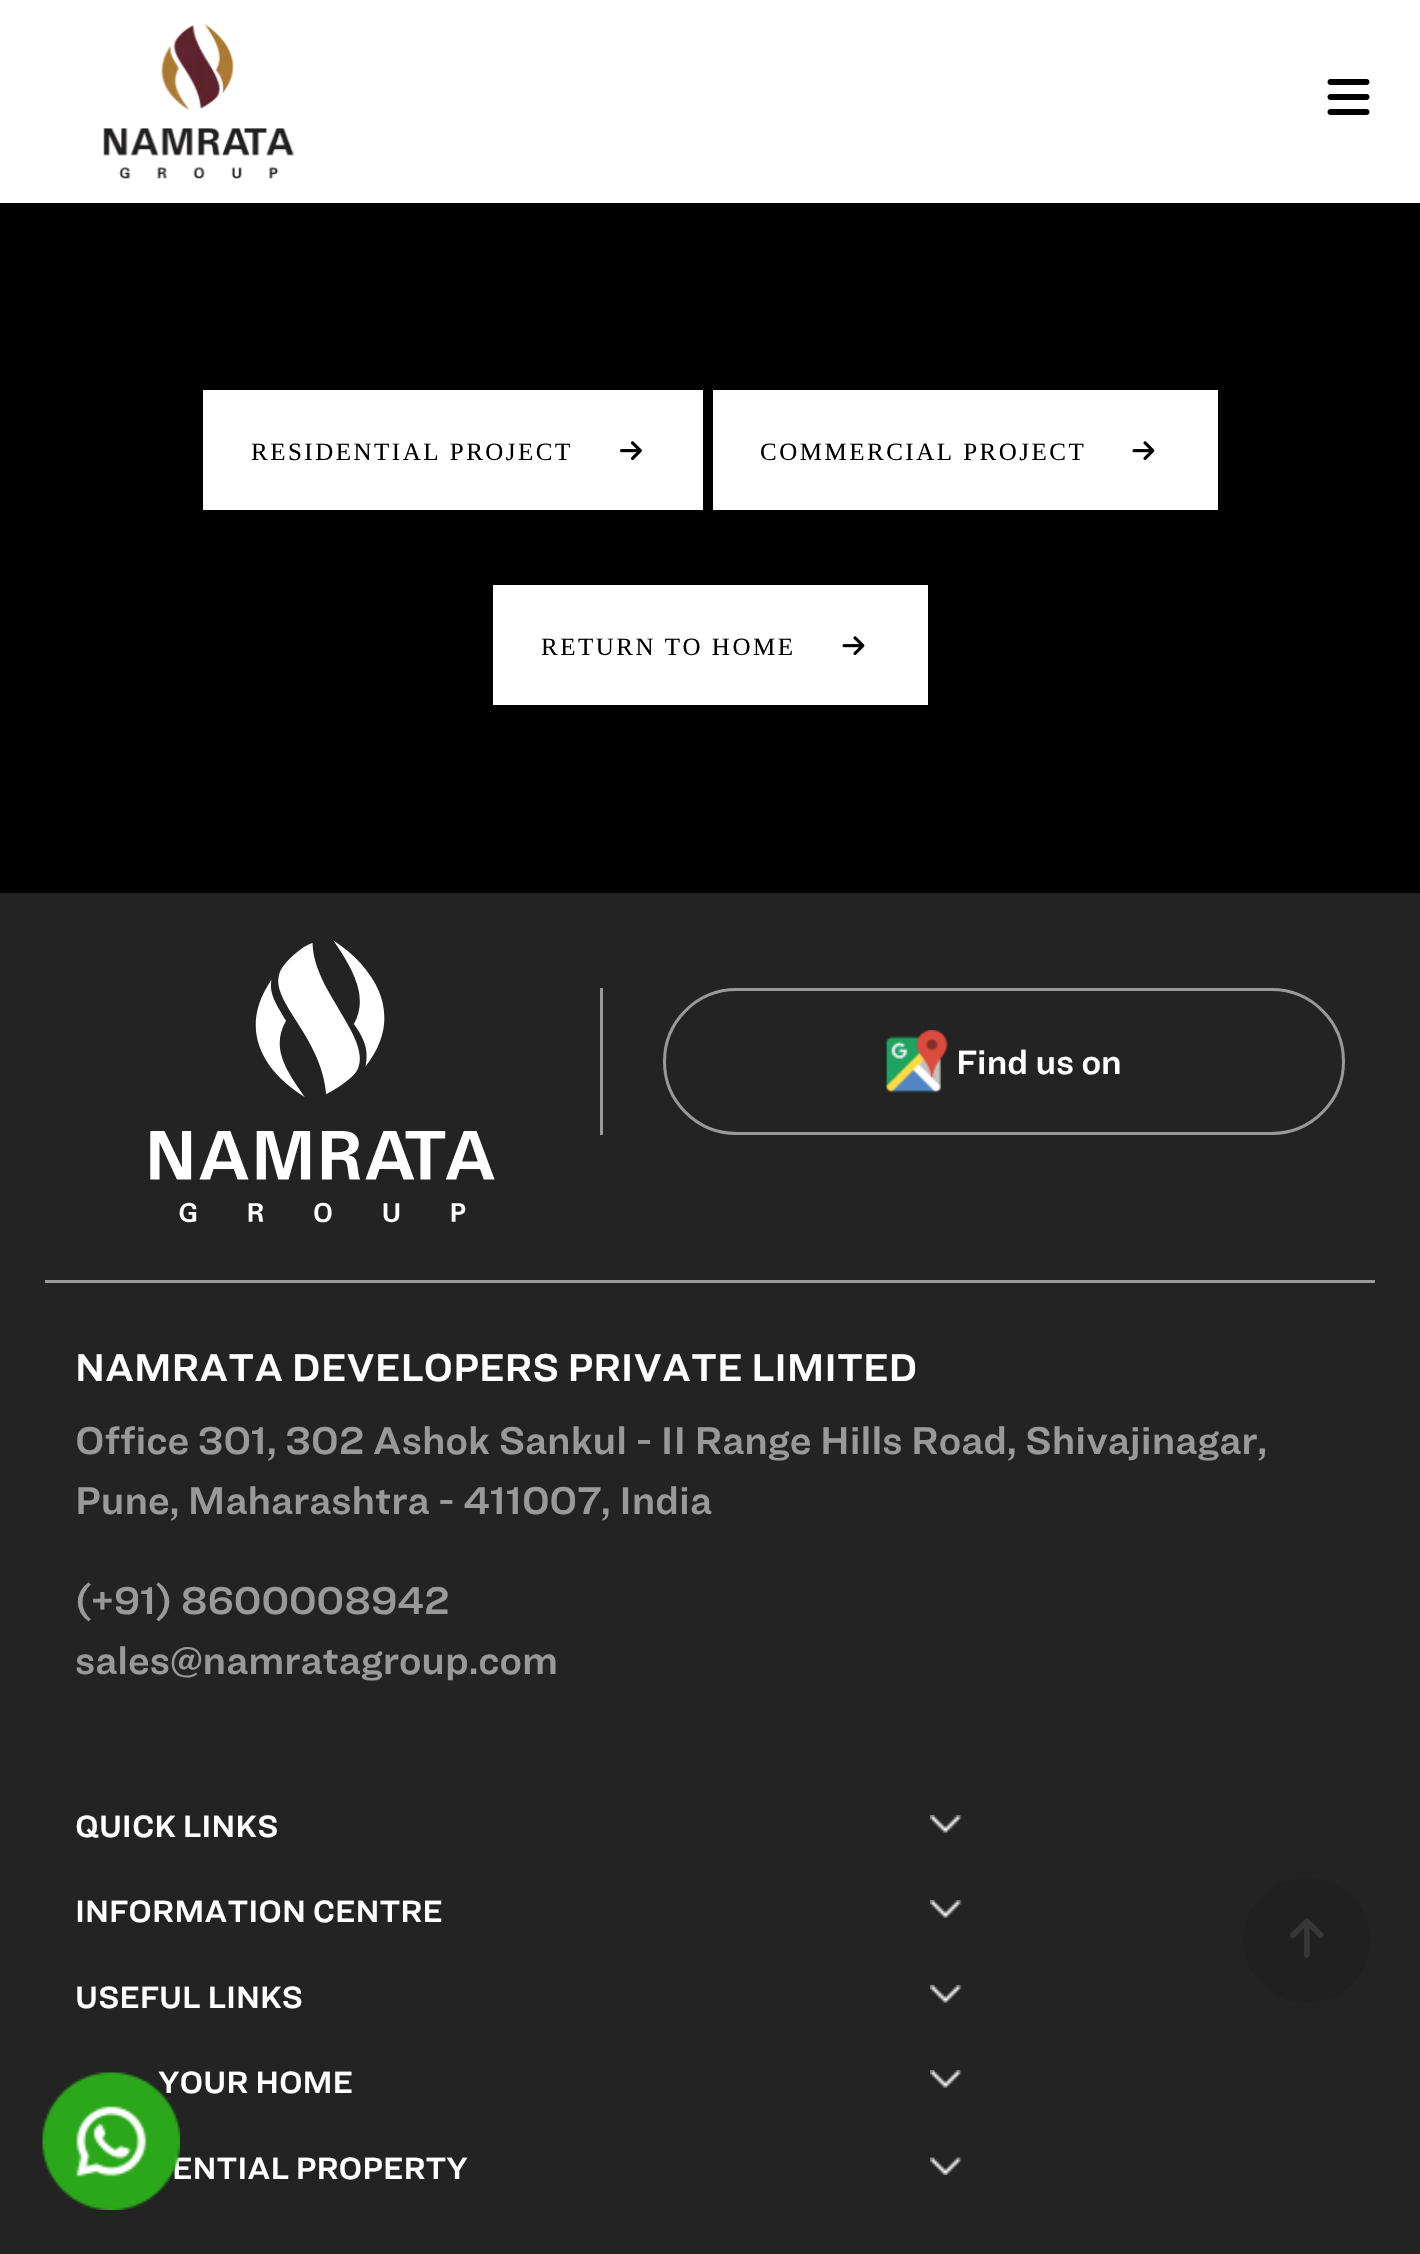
static SkFont makeFont(const char* family, int weight, float size, bool italic = false) {
  SkFontStyle style(weight, SkFontStyle::kNormal_Width,
    italic ? SkFontStyle::kItalic_Slant : SkFontStyle::kUpright_Slant);
  SkFont result(fontMgr->matchFamilyStyle(family, style), size);
  result.setSubpixel(true);
  return result;
}

static void text(SkCanvas* c, const char* s, float x, float y, const SkFont& font, SkColor color) {
  SkPaint ink(SkColor4f::FromColor(color));
  ink.setAntiAlias(true);
  c->drawString(s, x, y, font, ink);
}

static void spacedText(SkCanvas* c, const char* s, float x, float y, const SkFont& font, const SkPaint& ink, float letter, float word) {
  std::vector<SkGlyphID> glyphs(font.countText(s, strlen(s), SkTextEncoding::kUTF8));
  std::vector<float> xs(glyphs.size());
  font.textToGlyphs(s, strlen(s), SkTextEncoding::kUTF8, glyphs);
  font.getXPos(glyphs, xs, x);
  float extra = 0;
  for (size_t i = 0; i < glyphs.size(); i++) {
    xs[i] += extra;
    extra += letter + word * (glyphs[i] == font.unicharToGlyph(' '));
  }
  c->drawTextBlob(SkTextBlob::MakeFromPosHGlyphs(glyphs, xs, y, font), 0, 0, ink);
}

static void box(SkCanvas* c, float l, float t, float r, float b, SkColor color) {
  SkPaint ink(SkColor4f::FromColor(color));
  ink.setAntiAlias(true);
  c->drawRect(SkRect::MakeLTRB(l, t, r, b), ink);
}

static void roundBox(SkCanvas* c, float l, float t, float r, float b, float radius, SkColor color) {
  SkPaint ink(SkColor4f::FromColor(color));
  ink.setAntiAlias(true);
  c->drawRoundRect(SkRect::MakeLTRB(l, t, r, b), radius, radius, ink);
}

static void picture(SkCanvas* c, const char* path, float l, float t, float r, float b) {
  auto image = SkImages::DeferredFromEncodedData(SkData::MakeFromFileName(path));
  c->drawImageRect(image, SkRect::MakeLTRB(l, t, r, b), SkSamplingOptions());
}

void draw(SkCanvas* c) {
  SkPaint paint;
  paint.setAntiAlias(true);
  c->clear(0xff000000);
  box(c, 0, 0, 1420, 203, 0xffffffff);
  picture(c, "img_01.png", 103, 24, 295, 179);
  picture(c, "img_02.png", 1327, 79, 1370, 115);
  box(c, 203, 390, 703, 510, 0xffffffff);
  SkFont face1 = makeFont("Liberation Serif", 400, 25);
  paint.setColor(0xff000000);
  spacedText(c, "RESIDENTIAL PROJECT", 251, 460, face1, paint, 2.5f, 0);
  picture(c, "img_03.png", 620, 441, 642, 460);
  box(c, 713, 390, 1218, 510, 0xffffffff);
  spacedText(c, "COMMERCIAL PROJECT", 760, 460, face1, paint, 2.5f, 0);
  picture(c, "img_04.png", 1132, 441, 1155, 460);
  box(c, 493, 585, 928, 705, 0xffffffff);
  spacedText(c, "RETURN TO HOME", 541, 655, face1, paint, 2.5f, 0);
  picture(c, "img_04.png", 842, 636, 865, 655);
  box(c, 0, 893, 1420, 2254, 0xff232323);
  box(c, 45, 1280, 1375, 1283, 0xff999999);
  picture(c, "img_05.png", 150, 940, 495, 1223);
  box(c, 600, 988, 603, 1135, 0xff999999);
  paint.setStyle(SkPaint::kStroke_Style);
  paint.setStrokeWidth(3);
  paint.setColor(0xff999999);
  c->drawRoundRect(SkRect::MakeLTRB(664.5f, 989.5f, 1343.5f, 1133.5f), 72, 72, paint);
  picture(c, "img_06.png", 886, 1030, 948, 1093);
  SkFont face2 = makeFont("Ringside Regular", 400, 35);
  text(c, "Find us on", 956, 1074, face2, 0xffffffff);
  SkFont face3 = makeFont("Ringside Regular", 400, 40);
  text(c, "NAMRATA DEVELOPERS PRIVATE LIMITED", 75, 1381, face3, 0xffffffff);
  text(c, "Office 301, 302 Ashok Sankul - II Range Hills Road, Shivajinagar,", 75, 1454, face3, 0xff999999);
  text(c, "Pune, Maharashtra - 411007, India", 75, 1514, face3, 0xff999999);
  text(c, "(+91) 8600008942", 75, 1614, face3, 0xff999999);
  text(c, "sales@namratagroup.com", 75, 1674, face3, 0xff999999);
  SkFont face4 = makeFont("Ringside Regular", 400, 32);
  text(c, "QUICK LINKS", 75, 1837, face4, 0xffffffff);
  picture(c, "img_07.png", 930, 1815, 962, 1833);
  text(c, "INFORMATION CENTRE", 75, 1922, face4, 0xffffffff);
  picture(c, "img_07.png", 930, 1900, 962, 1918);
  text(c, "USEFUL LINKS", 75, 2008, face4, 0xffffffff);
  picture(c, "img_07.png", 930, 1985, 962, 2003);
  text(c, "YOUR HOME", 158, 2093, face4, 0xffffffff);
  picture(c, "img_07.png", 930, 2070, 962, 2088);
  text(c, "ENTIAL PROPERTY", 172, 2179, face4, 0xffffffff);
  picture(c, "img_08.png", 930, 2157, 962, 2175);
  roundBox(c, 1243, 1878, 1370, 2003, 62.5f, 0xff202020);
  picture(c, "img_09.png", 1290, 1918, 1324, 1958);
  picture(c, "img_10.png", 42, 2072, 180, 2210);
}
